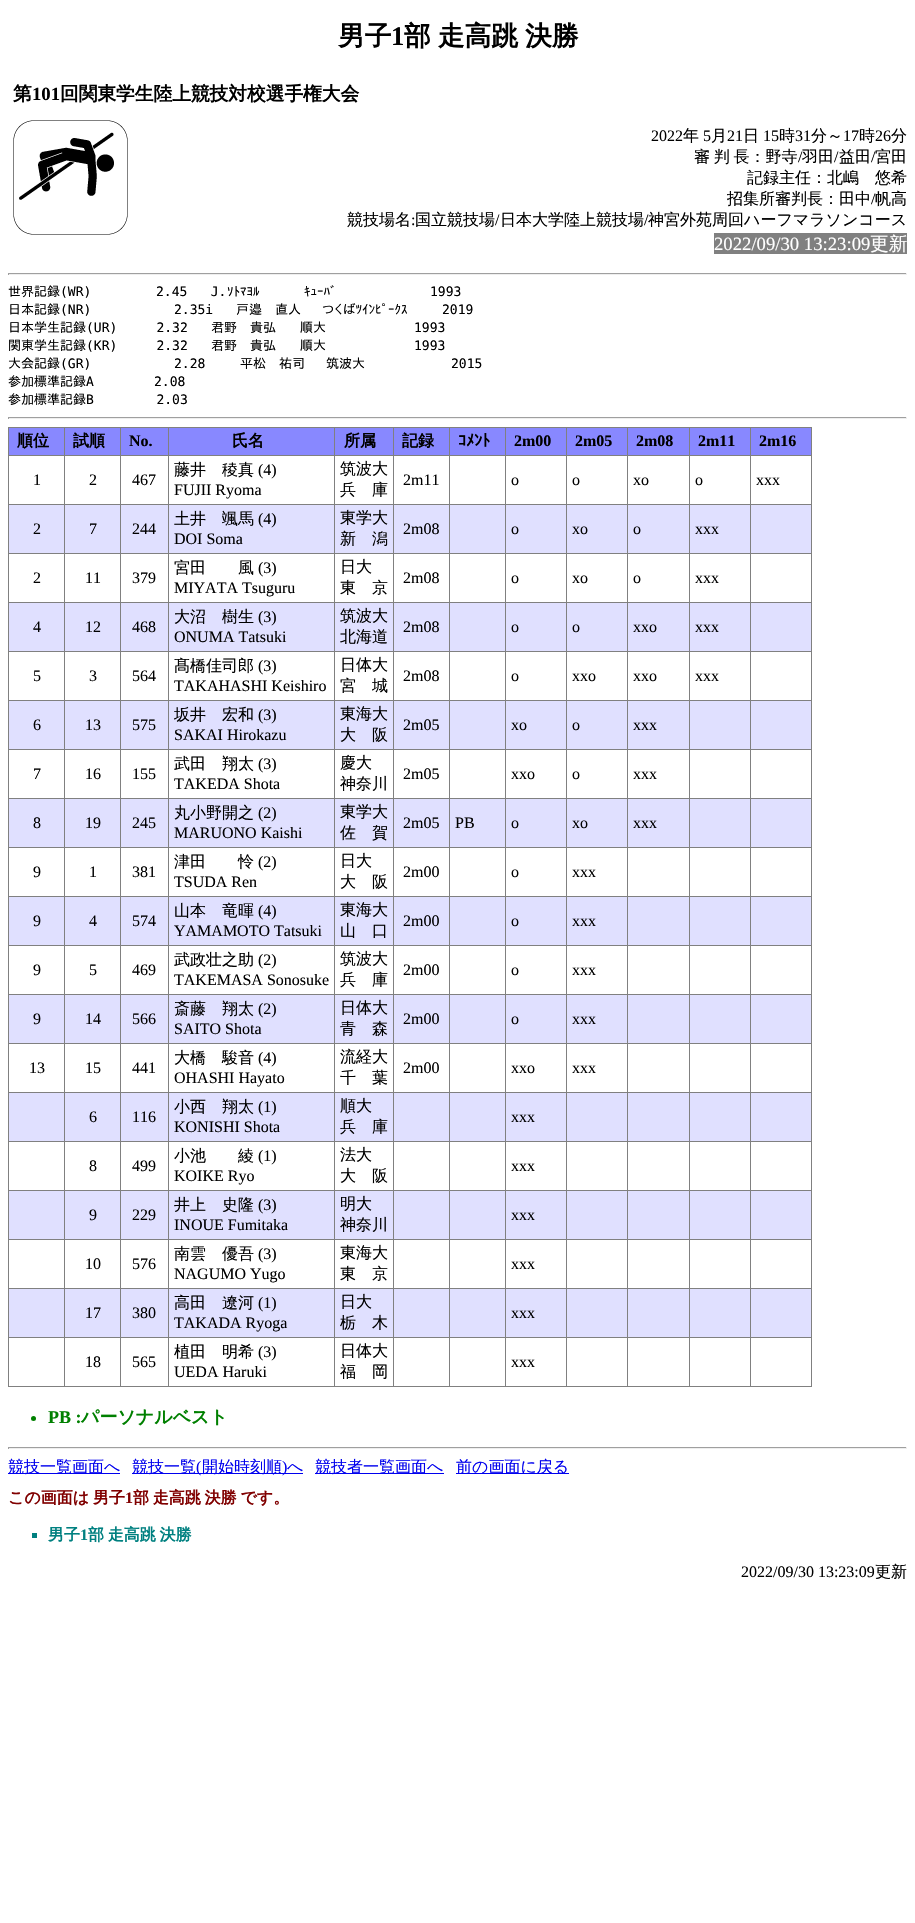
static SkFont makeFont(const char* family, int weight, float size, bool italic = false) {
  SkFontStyle style(weight, SkFontStyle::kNormal_Width,
    italic ? SkFontStyle::kItalic_Slant : SkFontStyle::kUpright_Slant);
  SkFont result(fontMgr->matchFamilyStyle(family, style), size);
  result.setSubpixel(true);
  return result;
}

static void text(SkCanvas* c, const char* s, float x, float y, const SkFont& font, SkColor color) {
  SkPaint ink(SkColor4f::FromColor(color));
  ink.setAntiAlias(true);
  c->drawString(s, x, y, font, ink);
}

static void spacedText(SkCanvas* c, const char* s, float x, float y, const SkFont& font, const SkPaint& ink, float letter, float word) {
  std::vector<SkGlyphID> glyphs(font.countText(s, strlen(s), SkTextEncoding::kUTF8));
  std::vector<float> xs(glyphs.size());
  font.textToGlyphs(s, strlen(s), SkTextEncoding::kUTF8, glyphs);
  font.getXPos(glyphs, xs, x);
  float extra = 0;
  for (size_t i = 0; i < glyphs.size(); i++) {
    xs[i] += extra;
    extra += letter + word * (glyphs[i] == font.unicharToGlyph(' '));
  }
  c->drawTextBlob(SkTextBlob::MakeFromPosHGlyphs(glyphs, xs, y, font), 0, 0, ink);
}

static void box(SkCanvas* c, float l, float t, float r, float b, SkColor color) {
  SkPaint ink(SkColor4f::FromColor(color));
  ink.setAntiAlias(true);
  c->drawRect(SkRect::MakeLTRB(l, t, r, b), ink);
}

static void picture(SkCanvas* c, const char* path, float l, float t, float r, float b) {
  auto image = SkImages::DeferredFromEncodedData(SkData::MakeFromFileName(path));
  c->drawImageRect(image, SkRect::MakeLTRB(l, t, r, b), SkSamplingOptions());
}

void draw(SkCanvas* c) {
  SkPaint paint;
  paint.setAntiAlias(true);
  c->clear(0xffffffff);
  SkFont face1 = makeFont("WenQuanYi Zen Hei", 700, 26.75f);
  text(c, "男子", 338, 45, face1, 0xff000000);
  SkFont face2 = makeFont("Liberation Serif", 700, 26.75f);
  text(c, "1", 391, 45, face2, 0xff000000);
  paint.setColor(0xff000000);
  spacedText(c, "部 走高跳 決勝", 404, 45, face1, paint, 0, -1);
  SkFont face3 = makeFont("WenQuanYi Zen Hei", 700, 18.7f);
  text(c, "第", 13, 100, face3, 0xff000000);
  SkFont face4 = makeFont("Liberation Serif", 700, 18.7f);
  text(c, "101", 32, 100, face4, 0xff000000);
  text(c, "回関東学生陸上競技対校選手権大会", 60, 100, face3, 0xff000000);
  picture(c, "img_01.png", 13, 120, 128, 235);
  SkFont face5 = makeFont("Liberation Serif", 400, 16);
  text(c, "2022", 651, 141, face5, 0xff000000);
  SkFont face6 = makeFont("WenQuanYi Zen Hei", 500, 16);
  text(c, "年", 683, 141, face6, 0xff000000);
  text(c, "5", 703, 141, face5, 0xff000000);
  text(c, "月", 711, 141, face6, 0xff000000);
  text(c, "21", 727, 141, face5, 0xff000000);
  text(c, "日", 743, 141, face6, 0xff000000);
  text(c, "15", 763, 141, face5, 0xff000000);
  text(c, "時", 779, 141, face6, 0xff000000);
  text(c, "31", 795, 141, face5, 0xff000000);
  text(c, "分～", 811, 141, face6, 0xff000000);
  text(c, "17", 843, 141, face5, 0xff000000);
  text(c, "時", 859, 141, face6, 0xff000000);
  text(c, "26", 875, 141, face5, 0xff000000);
  text(c, "分", 891, 141, face6, 0xff000000);
  spacedText(c, "審 判 長：野寺", 694, 162, face6, paint, 0, -1);
  text(c, "/", 798, 162, face5, 0xff000000);
  text(c, "羽田", 802, 162, face6, 0xff000000);
  text(c, "/", 834, 162, face5, 0xff000000);
  text(c, "益田", 839, 162, face6, 0xff000000);
  text(c, "/", 871, 162, face5, 0xff000000);
  text(c, "宮田", 875, 162, face6, 0xff000000);
  text(c, "記録主任：北嶋　悠希", 747, 183, face6, 0xff000000);
  text(c, "招集所審判長：田中", 727, 204, face6, 0xff000000);
  text(c, "/", 871, 204, face5, 0xff000000);
  text(c, "帆高", 875, 204, face6, 0xff000000);
  text(c, "競技場名", 347, 225, face6, 0xff000000);
  text(c, ":", 411, 225, face5, 0xff000000);
  text(c, "国立競技場", 415, 225, face6, 0xff000000);
  text(c, "/", 495, 225, face5, 0xff000000);
  text(c, "日本大学陸上競技場", 500, 225, face6, 0xff000000);
  text(c, "/", 644, 225, face5, 0xff000000);
  text(c, "神宮外苑周回ハーフマラソンコース", 648, 225, face6, 0xff000000);
  box(c, 714, 233, 907, 254, 0xff808080);
  SkFont face7 = makeFont("Liberation Serif", 400, 18.7f);
  text(c, "2022/09/30 13:23:09", 714, 250, face7, 0xffffffff);
  SkFont face8 = makeFont("WenQuanYi Zen Hei", 500, 18.7f);
  text(c, "更新", 870, 250, face8, 0xffffffff);
  box(c, 8, 273, 907, 274, 0xff9f9f9f);
  box(c, 906, 273, 907, 275, 0xffeeeeee);
  box(c, 8, 274, 907, 275, 0xffeeeeee);
  box(c, 8, 273, 9, 275, 0xff9f9f9f);
  SkFont face9 = makeFont("IPAPGothic", 400, 13);
  text(c, "世界記録", 8, 296, face9, 0xff000000);
  SkFont face10 = makeFont("DejaVu Sans Mono", 400, 13);
  text(c, "(WR)", 60, 296, face10, 0xff000000);
  text(c, "2.45   J.", 156, 296, face10, 0xff000000);
  text(c, "ｿﾄﾏﾖﾙ", 227, 296, face9, 0xff000000);
  text(c, "ｷｭｰﾊﾞ", 304, 296, face9, 0xff000000);
  text(c, "1993", 430, 296, face10, 0xff000000);
  text(c, "日本記録", 8, 314, face9, 0xff000000);
  text(c, "(NR)", 60, 314, face10, 0xff000000);
  text(c, "2.35i", 174, 314, face10, 0xff000000);
  spacedText(c, "戸邉　直人   つくばﾂｲﾝﾋﾟｰｸｽ", 236, 314, face9, paint, 0, 3.5f);
  text(c, "2019", 442, 314, face10, 0xff000000);
  text(c, "日本学生記録", 8, 332, face9, 0xff000000);
  text(c, "(UR)     2.32", 86, 332, face10, 0xff000000);
  text(c, "君野　貴弘", 211, 332, face9, 0xff000000);
  text(c, "順大", 300, 332, face9, 0xff000000);
  text(c, "1993", 414, 332, face10, 0xff000000);
  text(c, "関東学生記録", 8, 350, face9, 0xff000000);
  text(c, "(KR)     2.32", 86, 350, face10, 0xff000000);
  text(c, "君野　貴弘", 211, 350, face9, 0xff000000);
  text(c, "順大", 300, 350, face9, 0xff000000);
  text(c, "1993", 414, 350, face10, 0xff000000);
  text(c, "大会記録", 8, 368, face9, 0xff000000);
  text(c, "(GR)", 60, 368, face10, 0xff000000);
  text(c, "2.28", 174, 368, face10, 0xff000000);
  spacedText(c, "平松　祐司   筑波大", 240, 368, face9, paint, 0, 3.5f);
  text(c, "2015", 451, 368, face10, 0xff000000);
  text(c, "参加標準記録", 8, 386, face9, 0xff000000);
  text(c, "A", 86, 386, face10, 0xff000000);
  text(c, "2.08", 154, 386, face10, 0xff000000);
  text(c, "参加標準記録", 8, 404, face9, 0xff000000);
  text(c, "B        2.03", 86, 404, face10, 0xff000000);
  box(c, 8, 417, 907, 418, 0xff9f9f9f);
  box(c, 906, 417, 907, 419, 0xffeeeeee);
  box(c, 8, 418, 907, 419, 0xffeeeeee);
  box(c, 8, 417, 9, 419, 0xff9f9f9f);
  box(c, 8, 427, 812, 428, 0xff808080);
  box(c, 8, 427, 9, 1387, 0xff808080);
  box(c, 9, 428, 64, 455, 0xff8888ff);
  box(c, 811, 945, 812, 1387, 0xff808080);
  box(c, 811, 504, 812, 946, 0xff808080);
  box(c, 811, 427, 812, 505, 0xff808080);
  box(c, 9, 505, 811, 553, 0xffe0e0ff);
  box(c, 9, 603, 811, 651, 0xffe0e0ff);
  box(c, 9, 701, 811, 749, 0xffe0e0ff);
  box(c, 9, 799, 811, 847, 0xffe0e0ff);
  box(c, 9, 897, 811, 945, 0xffe0e0ff);
  box(c, 9, 995, 811, 1043, 0xffe0e0ff);
  box(c, 9, 1093, 811, 1141, 0xffe0e0ff);
  box(c, 9, 1191, 811, 1239, 0xffe0e0ff);
  box(c, 9, 1289, 811, 1337, 0xffe0e0ff);
  box(c, 750, 1386, 812, 1387, 0xff808080);
  box(c, 750, 1337, 751, 1387, 0xff808080);
  box(c, 750, 1337, 812, 1338, 0xff808080);
  box(c, 750, 1288, 751, 1338, 0xff808080);
  box(c, 750, 1288, 812, 1289, 0xff808080);
  box(c, 750, 1239, 751, 1289, 0xff808080);
  box(c, 750, 1239, 812, 1240, 0xff808080);
  box(c, 750, 1190, 751, 1240, 0xff808080);
  box(c, 750, 1190, 812, 1191, 0xff808080);
  box(c, 750, 1141, 751, 1191, 0xff808080);
  box(c, 750, 1141, 812, 1142, 0xff808080);
  box(c, 750, 1092, 751, 1142, 0xff808080);
  box(c, 750, 1092, 812, 1093, 0xff808080);
  box(c, 750, 1043, 751, 1093, 0xff808080);
  box(c, 750, 1043, 812, 1044, 0xff808080);
  box(c, 750, 994, 751, 1044, 0xff808080);
  box(c, 750, 994, 812, 995, 0xff808080);
  box(c, 750, 945, 751, 995, 0xff808080);
  box(c, 750, 945, 812, 946, 0xff808080);
  box(c, 750, 896, 751, 946, 0xff808080);
  box(c, 750, 896, 812, 897, 0xff808080);
  box(c, 750, 847, 751, 897, 0xff808080);
  box(c, 750, 847, 812, 848, 0xff808080);
  box(c, 750, 798, 751, 848, 0xff808080);
  box(c, 750, 798, 812, 799, 0xff808080);
  box(c, 750, 749, 751, 799, 0xff808080);
  box(c, 750, 749, 812, 750, 0xff808080);
  box(c, 750, 700, 751, 750, 0xff808080);
  box(c, 750, 700, 812, 701, 0xff808080);
  box(c, 750, 651, 751, 701, 0xff808080);
  box(c, 750, 651, 812, 652, 0xff808080);
  box(c, 750, 602, 751, 652, 0xff808080);
  box(c, 750, 602, 812, 603, 0xff808080);
  box(c, 750, 553, 751, 603, 0xff808080);
  box(c, 750, 553, 812, 554, 0xff808080);
  box(c, 750, 504, 751, 554, 0xff808080);
  box(c, 750, 504, 812, 505, 0xff808080);
  box(c, 750, 455, 751, 505, 0xff808080);
  box(c, 750, 455, 812, 456, 0xff808080);
  box(c, 750, 427, 751, 456, 0xff808080);
  box(c, 689, 1386, 751, 1387, 0xff808080);
  box(c, 689, 1337, 690, 1387, 0xff808080);
  box(c, 689, 1337, 751, 1338, 0xff808080);
  box(c, 689, 1288, 690, 1338, 0xff808080);
  box(c, 689, 1288, 751, 1289, 0xff808080);
  box(c, 689, 1239, 690, 1289, 0xff808080);
  box(c, 689, 1239, 751, 1240, 0xff808080);
  box(c, 689, 1190, 690, 1240, 0xff808080);
  box(c, 689, 1190, 751, 1191, 0xff808080);
  box(c, 689, 1141, 690, 1191, 0xff808080);
  box(c, 689, 1141, 751, 1142, 0xff808080);
  box(c, 689, 1092, 690, 1142, 0xff808080);
  box(c, 689, 1092, 751, 1093, 0xff808080);
  box(c, 689, 1043, 690, 1093, 0xff808080);
  box(c, 689, 1043, 751, 1044, 0xff808080);
  box(c, 689, 994, 690, 1044, 0xff808080);
  box(c, 689, 994, 751, 995, 0xff808080);
  box(c, 689, 945, 690, 995, 0xff808080);
  box(c, 689, 945, 751, 946, 0xff808080);
  box(c, 689, 896, 690, 946, 0xff808080);
  box(c, 689, 896, 751, 897, 0xff808080);
  box(c, 689, 847, 690, 897, 0xff808080);
  box(c, 689, 847, 751, 848, 0xff808080);
  box(c, 689, 798, 690, 848, 0xff808080);
  box(c, 689, 798, 751, 799, 0xff808080);
  box(c, 689, 749, 690, 799, 0xff808080);
  box(c, 689, 749, 751, 750, 0xff808080);
  box(c, 689, 700, 690, 750, 0xff808080);
  box(c, 689, 700, 751, 701, 0xff808080);
  box(c, 689, 651, 690, 701, 0xff808080);
  box(c, 689, 651, 751, 652, 0xff808080);
  box(c, 689, 602, 690, 652, 0xff808080);
  box(c, 689, 602, 751, 603, 0xff808080);
  box(c, 689, 553, 690, 603, 0xff808080);
  box(c, 689, 553, 751, 554, 0xff808080);
  box(c, 689, 504, 690, 554, 0xff808080);
  box(c, 689, 504, 751, 505, 0xff808080);
  box(c, 689, 455, 690, 505, 0xff808080);
  box(c, 689, 455, 751, 456, 0xff808080);
  box(c, 689, 427, 690, 456, 0xff808080);
  box(c, 627, 1386, 690, 1387, 0xff808080);
  box(c, 627, 1337, 628, 1387, 0xff808080);
  box(c, 627, 1337, 690, 1338, 0xff808080);
  box(c, 627, 1288, 628, 1338, 0xff808080);
  box(c, 627, 1288, 690, 1289, 0xff808080);
  box(c, 627, 1239, 628, 1289, 0xff808080);
  box(c, 627, 1239, 690, 1240, 0xff808080);
  box(c, 627, 1190, 628, 1240, 0xff808080);
  box(c, 627, 1190, 690, 1191, 0xff808080);
  box(c, 627, 1141, 628, 1191, 0xff808080);
  box(c, 627, 1141, 690, 1142, 0xff808080);
  box(c, 627, 1092, 628, 1142, 0xff808080);
  box(c, 627, 1092, 690, 1093, 0xff808080);
  box(c, 627, 1043, 628, 1093, 0xff808080);
  box(c, 627, 1043, 690, 1044, 0xff808080);
  box(c, 627, 994, 628, 1044, 0xff808080);
  box(c, 627, 994, 690, 995, 0xff808080);
  box(c, 627, 945, 628, 995, 0xff808080);
  box(c, 627, 945, 690, 946, 0xff808080);
  box(c, 627, 896, 628, 946, 0xff808080);
  box(c, 627, 896, 690, 897, 0xff808080);
  box(c, 627, 847, 628, 897, 0xff808080);
  box(c, 627, 847, 690, 848, 0xff808080);
  box(c, 627, 798, 628, 848, 0xff808080);
  box(c, 627, 798, 690, 799, 0xff808080);
  box(c, 627, 749, 628, 799, 0xff808080);
  box(c, 627, 749, 690, 750, 0xff808080);
  box(c, 627, 700, 628, 750, 0xff808080);
  box(c, 627, 700, 690, 701, 0xff808080);
  box(c, 627, 651, 628, 701, 0xff808080);
  box(c, 627, 651, 690, 652, 0xff808080);
  box(c, 627, 602, 628, 652, 0xff808080);
  box(c, 627, 602, 690, 603, 0xff808080);
  box(c, 627, 553, 628, 603, 0xff808080);
  box(c, 627, 553, 690, 554, 0xff808080);
  box(c, 627, 504, 628, 554, 0xff808080);
  box(c, 627, 504, 690, 505, 0xff808080);
  box(c, 627, 455, 628, 505, 0xff808080);
  box(c, 627, 455, 690, 456, 0xff808080);
  box(c, 627, 427, 628, 456, 0xff808080);
  box(c, 566, 1386, 628, 1387, 0xff808080);
  box(c, 566, 1337, 567, 1387, 0xff808080);
  box(c, 566, 1337, 628, 1338, 0xff808080);
  box(c, 566, 1288, 567, 1338, 0xff808080);
  box(c, 566, 1288, 628, 1289, 0xff808080);
  box(c, 566, 1239, 567, 1289, 0xff808080);
  box(c, 566, 1239, 628, 1240, 0xff808080);
  box(c, 566, 1190, 567, 1240, 0xff808080);
  box(c, 566, 1190, 628, 1191, 0xff808080);
  box(c, 566, 1141, 567, 1191, 0xff808080);
  box(c, 566, 1141, 628, 1142, 0xff808080);
  box(c, 566, 1092, 567, 1142, 0xff808080);
  box(c, 566, 1092, 628, 1093, 0xff808080);
  box(c, 566, 1043, 567, 1093, 0xff808080);
  box(c, 566, 1043, 628, 1044, 0xff808080);
  box(c, 566, 994, 567, 1044, 0xff808080);
  box(c, 566, 994, 628, 995, 0xff808080);
  box(c, 566, 945, 567, 995, 0xff808080);
  box(c, 566, 945, 628, 946, 0xff808080);
  box(c, 566, 896, 567, 946, 0xff808080);
  box(c, 566, 896, 628, 897, 0xff808080);
  box(c, 566, 847, 567, 897, 0xff808080);
  box(c, 566, 847, 628, 848, 0xff808080);
  box(c, 566, 798, 567, 848, 0xff808080);
  box(c, 566, 798, 628, 799, 0xff808080);
  box(c, 566, 749, 567, 799, 0xff808080);
  box(c, 566, 749, 628, 750, 0xff808080);
  box(c, 566, 700, 567, 750, 0xff808080);
  box(c, 566, 700, 628, 701, 0xff808080);
  box(c, 566, 651, 567, 701, 0xff808080);
  box(c, 566, 651, 628, 652, 0xff808080);
  box(c, 566, 602, 567, 652, 0xff808080);
  box(c, 566, 602, 628, 603, 0xff808080);
  box(c, 566, 553, 567, 603, 0xff808080);
  box(c, 566, 553, 628, 554, 0xff808080);
  box(c, 566, 504, 567, 554, 0xff808080);
  box(c, 566, 504, 628, 505, 0xff808080);
  box(c, 566, 455, 567, 505, 0xff808080);
  box(c, 566, 455, 628, 456, 0xff808080);
  box(c, 566, 427, 567, 456, 0xff808080);
  box(c, 505, 1386, 567, 1387, 0xff808080);
  box(c, 505, 1337, 506, 1387, 0xff808080);
  box(c, 505, 1337, 567, 1338, 0xff808080);
  box(c, 505, 1288, 506, 1338, 0xff808080);
  box(c, 505, 1288, 567, 1289, 0xff808080);
  box(c, 505, 1239, 506, 1289, 0xff808080);
  box(c, 505, 1239, 567, 1240, 0xff808080);
  box(c, 505, 1190, 506, 1240, 0xff808080);
  box(c, 505, 1190, 567, 1191, 0xff808080);
  box(c, 505, 1141, 506, 1191, 0xff808080);
  box(c, 505, 1141, 567, 1142, 0xff808080);
  box(c, 505, 1092, 506, 1142, 0xff808080);
  box(c, 505, 1092, 567, 1093, 0xff808080);
  box(c, 505, 1043, 506, 1093, 0xff808080);
  box(c, 505, 1043, 567, 1044, 0xff808080);
  box(c, 505, 994, 506, 1044, 0xff808080);
  box(c, 505, 994, 567, 995, 0xff808080);
  box(c, 505, 945, 506, 995, 0xff808080);
  box(c, 505, 945, 567, 946, 0xff808080);
  box(c, 505, 896, 506, 946, 0xff808080);
  box(c, 505, 896, 567, 897, 0xff808080);
  box(c, 505, 847, 506, 897, 0xff808080);
  box(c, 505, 847, 567, 848, 0xff808080);
  box(c, 505, 798, 506, 848, 0xff808080);
  box(c, 505, 798, 567, 799, 0xff808080);
  box(c, 505, 749, 506, 799, 0xff808080);
  box(c, 505, 749, 567, 750, 0xff808080);
  box(c, 505, 700, 506, 750, 0xff808080);
  box(c, 505, 700, 567, 701, 0xff808080);
  box(c, 505, 651, 506, 701, 0xff808080);
  box(c, 505, 651, 567, 652, 0xff808080);
  box(c, 505, 602, 506, 652, 0xff808080);
  box(c, 505, 602, 567, 603, 0xff808080);
  box(c, 505, 553, 506, 603, 0xff808080);
  box(c, 505, 553, 567, 554, 0xff808080);
  box(c, 505, 504, 506, 554, 0xff808080);
  box(c, 505, 504, 567, 505, 0xff808080);
  box(c, 505, 455, 506, 505, 0xff808080);
  box(c, 505, 455, 567, 456, 0xff808080);
  box(c, 505, 427, 506, 456, 0xff808080);
  box(c, 449, 1386, 506, 1387, 0xff808080);
  box(c, 449, 1337, 450, 1387, 0xff808080);
  box(c, 449, 1337, 506, 1338, 0xff808080);
  box(c, 449, 1288, 450, 1338, 0xff808080);
  box(c, 449, 1288, 506, 1289, 0xff808080);
  box(c, 449, 1239, 450, 1289, 0xff808080);
  box(c, 449, 1239, 506, 1240, 0xff808080);
  box(c, 449, 1190, 450, 1240, 0xff808080);
  box(c, 449, 1190, 506, 1191, 0xff808080);
  box(c, 449, 1141, 450, 1191, 0xff808080);
  box(c, 449, 1141, 506, 1142, 0xff808080);
  box(c, 449, 1092, 450, 1142, 0xff808080);
  box(c, 449, 1092, 506, 1093, 0xff808080);
  box(c, 449, 1043, 450, 1093, 0xff808080);
  box(c, 449, 1043, 506, 1044, 0xff808080);
  box(c, 449, 994, 450, 1044, 0xff808080);
  box(c, 449, 994, 506, 995, 0xff808080);
  box(c, 449, 945, 450, 995, 0xff808080);
  box(c, 449, 945, 506, 946, 0xff808080);
  box(c, 449, 896, 450, 946, 0xff808080);
  box(c, 449, 896, 506, 897, 0xff808080);
  box(c, 449, 847, 450, 897, 0xff808080);
  box(c, 449, 847, 506, 848, 0xff808080);
  box(c, 449, 798, 450, 848, 0xff808080);
  box(c, 449, 798, 506, 799, 0xff808080);
  box(c, 449, 749, 450, 799, 0xff808080);
  box(c, 449, 749, 506, 750, 0xff808080);
  box(c, 449, 700, 450, 750, 0xff808080);
  box(c, 449, 700, 506, 701, 0xff808080);
  box(c, 449, 651, 450, 701, 0xff808080);
  box(c, 449, 651, 506, 652, 0xff808080);
  box(c, 449, 602, 450, 652, 0xff808080);
  box(c, 449, 602, 506, 603, 0xff808080);
  box(c, 449, 553, 450, 603, 0xff808080);
  box(c, 449, 553, 506, 554, 0xff808080);
  box(c, 449, 504, 450, 554, 0xff808080);
  box(c, 449, 504, 506, 505, 0xff808080);
  box(c, 449, 455, 450, 505, 0xff808080);
  box(c, 449, 455, 506, 456, 0xff808080);
  box(c, 449, 427, 450, 456, 0xff808080);
  box(c, 393, 1386, 450, 1387, 0xff808080);
  box(c, 393, 1337, 394, 1387, 0xff808080);
  box(c, 393, 1337, 450, 1338, 0xff808080);
  box(c, 393, 1288, 394, 1338, 0xff808080);
  box(c, 393, 1288, 450, 1289, 0xff808080);
  box(c, 393, 1239, 394, 1289, 0xff808080);
  box(c, 393, 1239, 450, 1240, 0xff808080);
  box(c, 393, 1190, 394, 1240, 0xff808080);
  box(c, 393, 1190, 450, 1191, 0xff808080);
  box(c, 393, 1141, 394, 1191, 0xff808080);
  box(c, 393, 1141, 450, 1142, 0xff808080);
  box(c, 393, 1092, 394, 1142, 0xff808080);
  box(c, 393, 1092, 450, 1093, 0xff808080);
  box(c, 393, 1043, 394, 1093, 0xff808080);
  box(c, 393, 1043, 450, 1044, 0xff808080);
  box(c, 393, 994, 394, 1044, 0xff808080);
  box(c, 393, 994, 450, 995, 0xff808080);
  box(c, 393, 945, 394, 995, 0xff808080);
  box(c, 393, 945, 450, 946, 0xff808080);
  box(c, 393, 896, 394, 946, 0xff808080);
  box(c, 393, 896, 450, 897, 0xff808080);
  box(c, 393, 847, 394, 897, 0xff808080);
  box(c, 393, 847, 450, 848, 0xff808080);
  box(c, 393, 798, 394, 848, 0xff808080);
  box(c, 393, 798, 450, 799, 0xff808080);
  box(c, 393, 749, 394, 799, 0xff808080);
  box(c, 393, 749, 450, 750, 0xff808080);
  box(c, 393, 700, 394, 750, 0xff808080);
  box(c, 393, 700, 450, 701, 0xff808080);
  box(c, 393, 651, 394, 701, 0xff808080);
  box(c, 393, 651, 450, 652, 0xff808080);
  box(c, 393, 602, 394, 652, 0xff808080);
  box(c, 393, 602, 450, 603, 0xff808080);
  box(c, 393, 553, 394, 603, 0xff808080);
  box(c, 393, 553, 450, 554, 0xff808080);
  box(c, 393, 504, 394, 554, 0xff808080);
  box(c, 393, 504, 450, 505, 0xff808080);
  box(c, 393, 455, 394, 505, 0xff808080);
  box(c, 393, 455, 450, 456, 0xff808080);
  box(c, 393, 427, 394, 456, 0xff808080);
  box(c, 334, 1386, 394, 1387, 0xff808080);
  box(c, 334, 1337, 335, 1387, 0xff808080);
  box(c, 334, 1337, 394, 1338, 0xff808080);
  box(c, 334, 1288, 335, 1338, 0xff808080);
  box(c, 334, 1288, 394, 1289, 0xff808080);
  box(c, 334, 1239, 335, 1289, 0xff808080);
  box(c, 334, 1239, 394, 1240, 0xff808080);
  box(c, 334, 1190, 335, 1240, 0xff808080);
  box(c, 334, 1190, 394, 1191, 0xff808080);
  box(c, 334, 1141, 335, 1191, 0xff808080);
  box(c, 334, 1141, 394, 1142, 0xff808080);
  box(c, 334, 1092, 335, 1142, 0xff808080);
  box(c, 334, 1092, 394, 1093, 0xff808080);
  box(c, 334, 1043, 335, 1093, 0xff808080);
  box(c, 334, 1043, 394, 1044, 0xff808080);
  box(c, 334, 994, 335, 1044, 0xff808080);
  box(c, 334, 994, 394, 995, 0xff808080);
  box(c, 334, 945, 335, 995, 0xff808080);
  box(c, 334, 945, 394, 946, 0xff808080);
  box(c, 334, 896, 335, 946, 0xff808080);
  box(c, 334, 896, 394, 897, 0xff808080);
  box(c, 334, 847, 335, 897, 0xff808080);
  box(c, 334, 847, 394, 848, 0xff808080);
  box(c, 334, 798, 335, 848, 0xff808080);
  box(c, 334, 798, 394, 799, 0xff808080);
  box(c, 334, 749, 335, 799, 0xff808080);
  box(c, 334, 749, 394, 750, 0xff808080);
  box(c, 334, 700, 335, 750, 0xff808080);
  box(c, 334, 700, 394, 701, 0xff808080);
  box(c, 334, 651, 335, 701, 0xff808080);
  box(c, 334, 651, 394, 652, 0xff808080);
  box(c, 334, 602, 335, 652, 0xff808080);
  box(c, 334, 602, 394, 603, 0xff808080);
  box(c, 334, 553, 335, 603, 0xff808080);
  box(c, 334, 553, 394, 554, 0xff808080);
  box(c, 334, 504, 335, 554, 0xff808080);
  box(c, 334, 504, 394, 505, 0xff808080);
  box(c, 334, 455, 335, 505, 0xff808080);
  box(c, 334, 455, 394, 456, 0xff808080);
  box(c, 334, 427, 335, 456, 0xff808080);
  box(c, 168, 1386, 335, 1387, 0xff808080);
  box(c, 168, 1337, 169, 1387, 0xff808080);
  box(c, 168, 1337, 335, 1338, 0xff808080);
  box(c, 168, 1288, 169, 1338, 0xff808080);
  box(c, 168, 1288, 335, 1289, 0xff808080);
  box(c, 168, 1239, 169, 1289, 0xff808080);
  box(c, 168, 1239, 335, 1240, 0xff808080);
  box(c, 168, 1190, 169, 1240, 0xff808080);
  box(c, 168, 1190, 335, 1191, 0xff808080);
  box(c, 168, 1141, 169, 1191, 0xff808080);
  box(c, 168, 1141, 335, 1142, 0xff808080);
  box(c, 168, 1092, 169, 1142, 0xff808080);
  box(c, 168, 1092, 335, 1093, 0xff808080);
  box(c, 168, 1043, 169, 1093, 0xff808080);
  box(c, 168, 1043, 335, 1044, 0xff808080);
  box(c, 168, 994, 169, 1044, 0xff808080);
  box(c, 168, 994, 335, 995, 0xff808080);
  box(c, 168, 945, 169, 995, 0xff808080);
  box(c, 168, 945, 335, 946, 0xff808080);
  box(c, 168, 896, 169, 946, 0xff808080);
  box(c, 168, 896, 335, 897, 0xff808080);
  box(c, 168, 847, 169, 897, 0xff808080);
  box(c, 168, 847, 335, 848, 0xff808080);
  box(c, 168, 798, 169, 848, 0xff808080);
  box(c, 168, 798, 335, 799, 0xff808080);
  box(c, 168, 749, 169, 799, 0xff808080);
  box(c, 168, 749, 335, 750, 0xff808080);
  box(c, 168, 700, 169, 750, 0xff808080);
  box(c, 168, 700, 335, 701, 0xff808080);
  box(c, 168, 651, 169, 701, 0xff808080);
  box(c, 168, 651, 335, 652, 0xff808080);
  box(c, 168, 602, 169, 652, 0xff808080);
  box(c, 168, 602, 335, 603, 0xff808080);
  box(c, 168, 553, 169, 603, 0xff808080);
  box(c, 168, 553, 335, 554, 0xff808080);
  box(c, 168, 504, 169, 554, 0xff808080);
  box(c, 168, 504, 335, 505, 0xff808080);
  box(c, 168, 455, 169, 505, 0xff808080);
  box(c, 168, 455, 335, 456, 0xff808080);
  box(c, 168, 427, 169, 456, 0xff808080);
  box(c, 120, 1386, 169, 1387, 0xff808080);
  box(c, 120, 1337, 121, 1387, 0xff808080);
  box(c, 120, 1337, 169, 1338, 0xff808080);
  box(c, 120, 1288, 121, 1338, 0xff808080);
  box(c, 120, 1288, 169, 1289, 0xff808080);
  box(c, 120, 1239, 121, 1289, 0xff808080);
  box(c, 120, 1239, 169, 1240, 0xff808080);
  box(c, 120, 1190, 121, 1240, 0xff808080);
  box(c, 120, 1190, 169, 1191, 0xff808080);
  box(c, 120, 1141, 121, 1191, 0xff808080);
  box(c, 120, 1141, 169, 1142, 0xff808080);
  box(c, 120, 1092, 121, 1142, 0xff808080);
  box(c, 120, 1092, 169, 1093, 0xff808080);
  box(c, 120, 1043, 121, 1093, 0xff808080);
  box(c, 120, 1043, 169, 1044, 0xff808080);
  box(c, 120, 994, 121, 1044, 0xff808080);
  box(c, 120, 994, 169, 995, 0xff808080);
  box(c, 120, 945, 121, 995, 0xff808080);
  box(c, 120, 945, 169, 946, 0xff808080);
  box(c, 120, 896, 121, 946, 0xff808080);
  box(c, 120, 896, 169, 897, 0xff808080);
  box(c, 120, 847, 121, 897, 0xff808080);
  box(c, 120, 847, 169, 848, 0xff808080);
  box(c, 120, 798, 121, 848, 0xff808080);
  box(c, 120, 798, 169, 799, 0xff808080);
  box(c, 120, 749, 121, 799, 0xff808080);
  box(c, 120, 749, 169, 750, 0xff808080);
  box(c, 120, 700, 121, 750, 0xff808080);
  box(c, 120, 700, 169, 701, 0xff808080);
  box(c, 120, 651, 121, 701, 0xff808080);
  box(c, 120, 651, 169, 652, 0xff808080);
  box(c, 120, 602, 121, 652, 0xff808080);
  box(c, 120, 602, 169, 603, 0xff808080);
  box(c, 120, 553, 121, 603, 0xff808080);
  box(c, 120, 553, 169, 554, 0xff808080);
  box(c, 120, 504, 121, 554, 0xff808080);
  box(c, 120, 504, 169, 505, 0xff808080);
  box(c, 120, 455, 121, 505, 0xff808080);
  box(c, 120, 455, 169, 456, 0xff808080);
  box(c, 120, 427, 121, 456, 0xff808080);
  box(c, 64, 1386, 121, 1387, 0xff808080);
  box(c, 64, 1337, 65, 1387, 0xff808080);
  box(c, 64, 1337, 121, 1338, 0xff808080);
  box(c, 64, 1288, 65, 1338, 0xff808080);
  box(c, 64, 1288, 121, 1289, 0xff808080);
  box(c, 64, 1239, 65, 1289, 0xff808080);
  box(c, 64, 1239, 121, 1240, 0xff808080);
  box(c, 64, 1190, 65, 1240, 0xff808080);
  box(c, 64, 1190, 121, 1191, 0xff808080);
  box(c, 64, 1141, 65, 1191, 0xff808080);
  box(c, 64, 1141, 121, 1142, 0xff808080);
  box(c, 64, 1092, 65, 1142, 0xff808080);
  box(c, 64, 1092, 121, 1093, 0xff808080);
  box(c, 64, 1043, 65, 1093, 0xff808080);
  box(c, 64, 1043, 121, 1044, 0xff808080);
  box(c, 64, 994, 65, 1044, 0xff808080);
  box(c, 64, 994, 121, 995, 0xff808080);
  box(c, 64, 945, 65, 995, 0xff808080);
  box(c, 64, 945, 121, 946, 0xff808080);
  box(c, 64, 896, 65, 946, 0xff808080);
  box(c, 64, 896, 121, 897, 0xff808080);
  box(c, 64, 847, 65, 897, 0xff808080);
  box(c, 64, 847, 121, 848, 0xff808080);
  box(c, 64, 798, 65, 848, 0xff808080);
  box(c, 64, 798, 121, 799, 0xff808080);
  box(c, 64, 749, 65, 799, 0xff808080);
  box(c, 64, 749, 121, 750, 0xff808080);
  box(c, 64, 700, 65, 750, 0xff808080);
  box(c, 64, 700, 121, 701, 0xff808080);
  box(c, 64, 651, 65, 701, 0xff808080);
  box(c, 64, 651, 121, 652, 0xff808080);
  box(c, 64, 602, 65, 652, 0xff808080);
  box(c, 64, 602, 121, 603, 0xff808080);
  box(c, 64, 553, 65, 603, 0xff808080);
  box(c, 64, 553, 121, 554, 0xff808080);
  box(c, 64, 504, 65, 554, 0xff808080);
  box(c, 64, 504, 121, 505, 0xff808080);
  box(c, 64, 455, 65, 505, 0xff808080);
  box(c, 64, 455, 121, 456, 0xff808080);
  box(c, 64, 427, 65, 456, 0xff808080);
  box(c, 8, 455, 65, 456, 0xff808080);
  SkFont face11 = makeFont("WenQuanYi Zen Hei", 700, 16);
  text(c, "順位", 17, 446, face11, 0xff000000);
  box(c, 65, 428, 120, 455, 0xff8888ff);
  text(c, "試順", 73, 446, face11, 0xff000000);
  box(c, 121, 428, 168, 455, 0xff8888ff);
  SkFont face12 = makeFont("Liberation Serif", 700, 16);
  text(c, "No.", 129, 446, face12, 0xff000000);
  box(c, 169, 428, 334, 455, 0xff8888ff);
  text(c, "氏名", 232, 446, face11, 0xff000000);
  box(c, 335, 428, 393, 455, 0xff8888ff);
  text(c, "所属", 344, 446, face11, 0xff000000);
  box(c, 394, 428, 449, 455, 0xff8888ff);
  text(c, "記録", 402, 446, face11, 0xff000000);
  box(c, 450, 428, 505, 455, 0xff8888ff);
  SkFont face13 = makeFont("IPAPGothic", 700, 16);
  text(c, "ｺﾒﾝﾄ", 458, 446, face13, 0xff000000);
  box(c, 506, 428, 566, 455, 0xff8888ff);
  text(c, "2m00", 514, 446, face12, 0xff000000);
  box(c, 567, 428, 627, 455, 0xff8888ff);
  text(c, "2m05", 575, 446, face12, 0xff000000);
  box(c, 628, 428, 689, 455, 0xff8888ff);
  text(c, "2m08", 636, 446, face12, 0xff000000);
  box(c, 690, 428, 750, 455, 0xff8888ff);
  text(c, "2m11", 698, 446, face12, 0xff000000);
  box(c, 751, 428, 811, 455, 0xff8888ff);
  text(c, "2m16", 759, 446, face12, 0xff000000);
  box(c, 8, 504, 65, 505, 0xff808080);
  text(c, "1", 33, 485, face5, 0xff000000);
  text(c, "2", 89, 485, face5, 0xff000000);
  text(c, "467", 132, 485, face5, 0xff000000);
  text(c, "藤井　稜真", 174, 475, face6, 0xff000000);
  text(c, "(4)", 258, 475, face5, 0xff000000);
  text(c, "FUJII Ryoma", 174, 495, face5, 0xff000000);
  text(c, "筑波大", 340, 474, face6, 0xff000000);
  text(c, "兵　庫", 340, 495, face6, 0xff000000);
  text(c, "2m11", 403, 485, face5, 0xff000000);
  text(c, "o", 511, 485, face5, 0xff000000);
  text(c, "o", 572, 485, face5, 0xff000000);
  text(c, "xo", 633, 485, face5, 0xff000000);
  text(c, "o", 695, 485, face5, 0xff000000);
  text(c, "xxx", 756, 485, face5, 0xff000000);
  box(c, 8, 553, 65, 554, 0xff808080);
  text(c, "2", 33, 534, face5, 0xff000000);
  text(c, "7", 89, 534, face5, 0xff000000);
  text(c, "244", 132, 534, face5, 0xff000000);
  text(c, "土井　颯馬", 174, 524, face6, 0xff000000);
  text(c, "(4)", 258, 524, face5, 0xff000000);
  text(c, "DOI Soma", 174, 544, face5, 0xff000000);
  text(c, "東学大", 340, 523, face6, 0xff000000);
  text(c, "新　潟", 340, 544, face6, 0xff000000);
  text(c, "2m08", 403, 534, face5, 0xff000000);
  text(c, "o", 511, 534, face5, 0xff000000);
  text(c, "xo", 572, 534, face5, 0xff000000);
  text(c, "o", 633, 534, face5, 0xff000000);
  text(c, "xxx", 695, 534, face5, 0xff000000);
  box(c, 8, 602, 65, 603, 0xff808080);
  text(c, "2", 33, 583, face5, 0xff000000);
  text(c, "11", 85, 583, face5, 0xff000000);
  text(c, "379", 132, 583, face5, 0xff000000);
  text(c, "宮田　　風", 174, 573, face6, 0xff000000);
  text(c, "(3)", 258, 573, face5, 0xff000000);
  text(c, "MIYATA Tsuguru", 174, 593, face5, 0xff000000);
  text(c, "日大", 340, 572, face6, 0xff000000);
  text(c, "東　京", 340, 593, face6, 0xff000000);
  text(c, "2m08", 403, 583, face5, 0xff000000);
  text(c, "o", 511, 583, face5, 0xff000000);
  text(c, "xo", 572, 583, face5, 0xff000000);
  text(c, "o", 633, 583, face5, 0xff000000);
  text(c, "xxx", 695, 583, face5, 0xff000000);
  box(c, 8, 651, 65, 652, 0xff808080);
  text(c, "4", 33, 632, face5, 0xff000000);
  text(c, "12", 85, 632, face5, 0xff000000);
  text(c, "468", 132, 632, face5, 0xff000000);
  text(c, "大沼　樹生", 174, 622, face6, 0xff000000);
  text(c, "(3)", 258, 622, face5, 0xff000000);
  text(c, "ONUMA Tatsuki", 174, 642, face5, 0xff000000);
  text(c, "筑波大", 340, 621, face6, 0xff000000);
  text(c, "北海道", 340, 642, face6, 0xff000000);
  text(c, "2m08", 403, 632, face5, 0xff000000);
  text(c, "o", 511, 632, face5, 0xff000000);
  text(c, "o", 572, 632, face5, 0xff000000);
  text(c, "xxo", 633, 632, face5, 0xff000000);
  text(c, "xxx", 695, 632, face5, 0xff000000);
  box(c, 8, 700, 65, 701, 0xff808080);
  text(c, "5", 33, 681, face5, 0xff000000);
  text(c, "3", 89, 681, face5, 0xff000000);
  text(c, "564", 132, 681, face5, 0xff000000);
  text(c, "髙橋佳司郎", 174, 671, face6, 0xff000000);
  text(c, "(3)", 258, 671, face5, 0xff000000);
  text(c, "TAKAHASHI Keishiro", 174, 691, face5, 0xff000000);
  text(c, "日体大", 340, 670, face6, 0xff000000);
  text(c, "宮　城", 340, 691, face6, 0xff000000);
  text(c, "2m08", 403, 681, face5, 0xff000000);
  text(c, "o", 511, 681, face5, 0xff000000);
  text(c, "xxo", 572, 681, face5, 0xff000000);
  text(c, "xxo", 633, 681, face5, 0xff000000);
  text(c, "xxx", 695, 681, face5, 0xff000000);
  box(c, 8, 749, 65, 750, 0xff808080);
  text(c, "6", 33, 730, face5, 0xff000000);
  text(c, "13", 85, 730, face5, 0xff000000);
  text(c, "575", 132, 730, face5, 0xff000000);
  text(c, "坂井　宏和", 174, 720, face6, 0xff000000);
  text(c, "(3)", 258, 720, face5, 0xff000000);
  text(c, "SAKAI Hirokazu", 174, 740, face5, 0xff000000);
  text(c, "東海大", 340, 719, face6, 0xff000000);
  text(c, "大　阪", 340, 740, face6, 0xff000000);
  text(c, "2m05", 403, 730, face5, 0xff000000);
  text(c, "xo", 511, 730, face5, 0xff000000);
  text(c, "o", 572, 730, face5, 0xff000000);
  text(c, "xxx", 633, 730, face5, 0xff000000);
  box(c, 8, 798, 65, 799, 0xff808080);
  text(c, "7", 33, 779, face5, 0xff000000);
  text(c, "16", 85, 779, face5, 0xff000000);
  text(c, "155", 132, 779, face5, 0xff000000);
  text(c, "武田　翔太", 174, 769, face6, 0xff000000);
  text(c, "(3)", 258, 769, face5, 0xff000000);
  text(c, "TAKEDA Shota", 174, 789, face5, 0xff000000);
  text(c, "慶大", 340, 768, face6, 0xff000000);
  text(c, "神奈川", 340, 789, face6, 0xff000000);
  text(c, "2m05", 403, 779, face5, 0xff000000);
  text(c, "xxo", 511, 779, face5, 0xff000000);
  text(c, "o", 572, 779, face5, 0xff000000);
  text(c, "xxx", 633, 779, face5, 0xff000000);
  box(c, 8, 847, 65, 848, 0xff808080);
  text(c, "8", 33, 828, face5, 0xff000000);
  text(c, "19", 85, 828, face5, 0xff000000);
  text(c, "245", 132, 828, face5, 0xff000000);
  text(c, "丸小野開之", 174, 818, face6, 0xff000000);
  text(c, "(2)", 258, 818, face5, 0xff000000);
  text(c, "MARUONO Kaishi", 174, 838, face5, 0xff000000);
  text(c, "東学大", 340, 817, face6, 0xff000000);
  text(c, "佐　賀", 340, 838, face6, 0xff000000);
  text(c, "2m05", 403, 828, face5, 0xff000000);
  text(c, "PB", 455, 828, face5, 0xff000000);
  text(c, "o", 511, 828, face5, 0xff000000);
  text(c, "xo", 572, 828, face5, 0xff000000);
  text(c, "xxx", 633, 828, face5, 0xff000000);
  box(c, 8, 896, 65, 897, 0xff808080);
  text(c, "9", 33, 877, face5, 0xff000000);
  text(c, "1", 89, 877, face5, 0xff000000);
  text(c, "381", 132, 877, face5, 0xff000000);
  text(c, "津田　　怜", 174, 867, face6, 0xff000000);
  text(c, "(2)", 258, 867, face5, 0xff000000);
  text(c, "TSUDA Ren", 174, 887, face5, 0xff000000);
  text(c, "日大", 340, 866, face6, 0xff000000);
  text(c, "大　阪", 340, 887, face6, 0xff000000);
  text(c, "2m00", 403, 877, face5, 0xff000000);
  text(c, "o", 511, 877, face5, 0xff000000);
  text(c, "xxx", 572, 877, face5, 0xff000000);
  box(c, 8, 945, 65, 946, 0xff808080);
  text(c, "9", 33, 926, face5, 0xff000000);
  text(c, "4", 89, 926, face5, 0xff000000);
  text(c, "574", 132, 926, face5, 0xff000000);
  text(c, "山本　竜暉", 174, 916, face6, 0xff000000);
  text(c, "(4)", 258, 916, face5, 0xff000000);
  text(c, "YAMAMOTO Tatsuki", 174, 936, face5, 0xff000000);
  text(c, "東海大", 340, 915, face6, 0xff000000);
  text(c, "山　口", 340, 936, face6, 0xff000000);
  text(c, "2m00", 403, 926, face5, 0xff000000);
  text(c, "o", 511, 926, face5, 0xff000000);
  text(c, "xxx", 572, 926, face5, 0xff000000);
  box(c, 8, 994, 65, 995, 0xff808080);
  text(c, "9", 33, 975, face5, 0xff000000);
  text(c, "5", 89, 975, face5, 0xff000000);
  text(c, "469", 132, 975, face5, 0xff000000);
  text(c, "武政壮之助", 174, 965, face6, 0xff000000);
  text(c, "(2)", 258, 965, face5, 0xff000000);
  text(c, "TAKEMASA Sonosuke", 174, 985, face5, 0xff000000);
  text(c, "筑波大", 340, 964, face6, 0xff000000);
  text(c, "兵　庫", 340, 985, face6, 0xff000000);
  text(c, "2m00", 403, 975, face5, 0xff000000);
  text(c, "o", 511, 975, face5, 0xff000000);
  text(c, "xxx", 572, 975, face5, 0xff000000);
  box(c, 8, 1043, 65, 1044, 0xff808080);
  text(c, "9", 33, 1024, face5, 0xff000000);
  text(c, "14", 85, 1024, face5, 0xff000000);
  text(c, "566", 132, 1024, face5, 0xff000000);
  text(c, "斎藤　翔太", 174, 1014, face6, 0xff000000);
  text(c, "(2)", 258, 1014, face5, 0xff000000);
  text(c, "SAITO Shota", 174, 1034, face5, 0xff000000);
  text(c, "日体大", 340, 1013, face6, 0xff000000);
  text(c, "青　森", 340, 1034, face6, 0xff000000);
  text(c, "2m00", 403, 1024, face5, 0xff000000);
  text(c, "o", 511, 1024, face5, 0xff000000);
  text(c, "xxx", 572, 1024, face5, 0xff000000);
  box(c, 8, 1092, 65, 1093, 0xff808080);
  text(c, "13", 29, 1073, face5, 0xff000000);
  text(c, "15", 85, 1073, face5, 0xff000000);
  text(c, "441", 132, 1073, face5, 0xff000000);
  text(c, "大橋　駿音", 174, 1063, face6, 0xff000000);
  text(c, "(4)", 258, 1063, face5, 0xff000000);
  text(c, "OHASHI Hayato", 174, 1083, face5, 0xff000000);
  text(c, "流経大", 340, 1062, face6, 0xff000000);
  text(c, "千　葉", 340, 1083, face6, 0xff000000);
  text(c, "2m00", 403, 1073, face5, 0xff000000);
  text(c, "xxo", 511, 1073, face5, 0xff000000);
  text(c, "xxx", 572, 1073, face5, 0xff000000);
  box(c, 8, 1141, 65, 1142, 0xff808080);
  text(c, "6", 89, 1122, face5, 0xff000000);
  text(c, "116", 132, 1122, face5, 0xff000000);
  text(c, "小西　翔太", 174, 1112, face6, 0xff000000);
  text(c, "(1)", 258, 1112, face5, 0xff000000);
  text(c, "KONISHI Shota", 174, 1132, face5, 0xff000000);
  text(c, "順大", 340, 1111, face6, 0xff000000);
  text(c, "兵　庫", 340, 1132, face6, 0xff000000);
  text(c, "xxx", 511, 1122, face5, 0xff000000);
  box(c, 8, 1190, 65, 1191, 0xff808080);
  text(c, "8", 89, 1171, face5, 0xff000000);
  text(c, "499", 132, 1171, face5, 0xff000000);
  text(c, "小池　　綾", 174, 1161, face6, 0xff000000);
  text(c, "(1)", 258, 1161, face5, 0xff000000);
  text(c, "KOIKE Ryo", 174, 1181, face5, 0xff000000);
  text(c, "法大", 340, 1160, face6, 0xff000000);
  text(c, "大　阪", 340, 1181, face6, 0xff000000);
  text(c, "xxx", 511, 1171, face5, 0xff000000);
  box(c, 8, 1239, 65, 1240, 0xff808080);
  text(c, "9", 89, 1220, face5, 0xff000000);
  text(c, "229", 132, 1220, face5, 0xff000000);
  text(c, "井上　史隆", 174, 1210, face6, 0xff000000);
  text(c, "(3)", 258, 1210, face5, 0xff000000);
  text(c, "INOUE Fumitaka", 174, 1230, face5, 0xff000000);
  text(c, "明大", 340, 1209, face6, 0xff000000);
  text(c, "神奈川", 340, 1230, face6, 0xff000000);
  text(c, "xxx", 511, 1220, face5, 0xff000000);
  box(c, 8, 1288, 65, 1289, 0xff808080);
  text(c, "10", 85, 1269, face5, 0xff000000);
  text(c, "576", 132, 1269, face5, 0xff000000);
  text(c, "南雲　優吾", 174, 1259, face6, 0xff000000);
  text(c, "(3)", 258, 1259, face5, 0xff000000);
  text(c, "NAGUMO Yugo", 174, 1279, face5, 0xff000000);
  text(c, "東海大", 340, 1258, face6, 0xff000000);
  text(c, "東　京", 340, 1279, face6, 0xff000000);
  text(c, "xxx", 511, 1269, face5, 0xff000000);
  box(c, 8, 1337, 65, 1338, 0xff808080);
  text(c, "17", 85, 1318, face5, 0xff000000);
  text(c, "380", 132, 1318, face5, 0xff000000);
  text(c, "高田　遼河", 174, 1308, face6, 0xff000000);
  text(c, "(1)", 258, 1308, face5, 0xff000000);
  text(c, "TAKADA Ryoga", 174, 1328, face5, 0xff000000);
  text(c, "日大", 340, 1307, face6, 0xff000000);
  text(c, "栃　木", 340, 1328, face6, 0xff000000);
  text(c, "xxx", 511, 1318, face5, 0xff000000);
  box(c, 8, 1386, 65, 1387, 0xff808080);
  text(c, "18", 85, 1367, face5, 0xff000000);
  text(c, "565", 132, 1367, face5, 0xff000000);
  text(c, "植田　明希", 174, 1357, face6, 0xff000000);
  text(c, "(3)", 258, 1357, face5, 0xff000000);
  text(c, "UEDA Haruki", 174, 1377, face5, 0xff000000);
  text(c, "日体大", 340, 1356, face6, 0xff000000);
  text(c, "福　岡", 340, 1377, face6, 0xff000000);
  text(c, "xxx", 511, 1367, face5, 0xff000000);
  paint.setColor(0xff008000);
  c->drawCircle(33.5f, 1418.5f, 2.5f, paint);
  SkFont face14 = makeFont("Liberation Serif", 700, 18);
  text(c, "PB :", 48, 1423, face14, 0xff008000);
  SkFont face15 = makeFont("WenQuanYi Zen Hei", 700, 18);
  text(c, "パーソナルベスト", 81, 1423, face15, 0xff008000);
  box(c, 8, 1447, 907, 1448, 0xff9f9f9f);
  box(c, 906, 1447, 907, 1449, 0xffeeeeee);
  box(c, 8, 1448, 907, 1449, 0xffeeeeee);
  box(c, 8, 1447, 9, 1449, 0xff9f9f9f);
  box(c, 8, 1473, 120, 1474, 0xff0000ee);
  text(c, "競技一覧画面へ", 8, 1472, face6, 0xff0000ee);
  box(c, 132, 1473, 303, 1474, 0xff0000ee);
  text(c, "競技一覧", 132, 1472, face6, 0xff0000ee);
  text(c, "(", 196, 1472, face5, 0xff0000ee);
  text(c, "開始時刻順", 202, 1472, face6, 0xff0000ee);
  text(c, ")", 282, 1472, face5, 0xff0000ee);
  text(c, "へ", 287, 1472, face6, 0xff0000ee);
  box(c, 315, 1473, 444, 1474, 0xff0000ee);
  text(c, "競技者一覧画面へ", 315, 1472, face6, 0xff0000ee);
  box(c, 456, 1473, 569, 1474, 0xff0000ee);
  text(c, "前の画面に戻る", 456, 1472, face6, 0xff0000ee);
  paint.setColor(0xff800000);
  spacedText(c, "この画面は 男子", 8, 1503, face11, paint, 0, -1);
  text(c, "1", 125, 1503, face12, 0xff800000);
  spacedText(c, "部 走高跳 決勝 です。", 133, 1503, face11, paint, 0, -1);
  box(c, 32, 1533, 37, 1538, 0xff008080);
  text(c, "男子", 48, 1540, face11, 0xff008080);
  text(c, "1", 80, 1540, face12, 0xff008080);
  paint.setColor(0xff008080);
  spacedText(c, "部 走高跳 決勝", 88, 1540, face11, paint, 0, -1);
  text(c, "2022/09/30 13:23:09", 741, 1577, face5, 0xff000000);
  text(c, "更新", 875, 1577, face6, 0xff000000);
}
